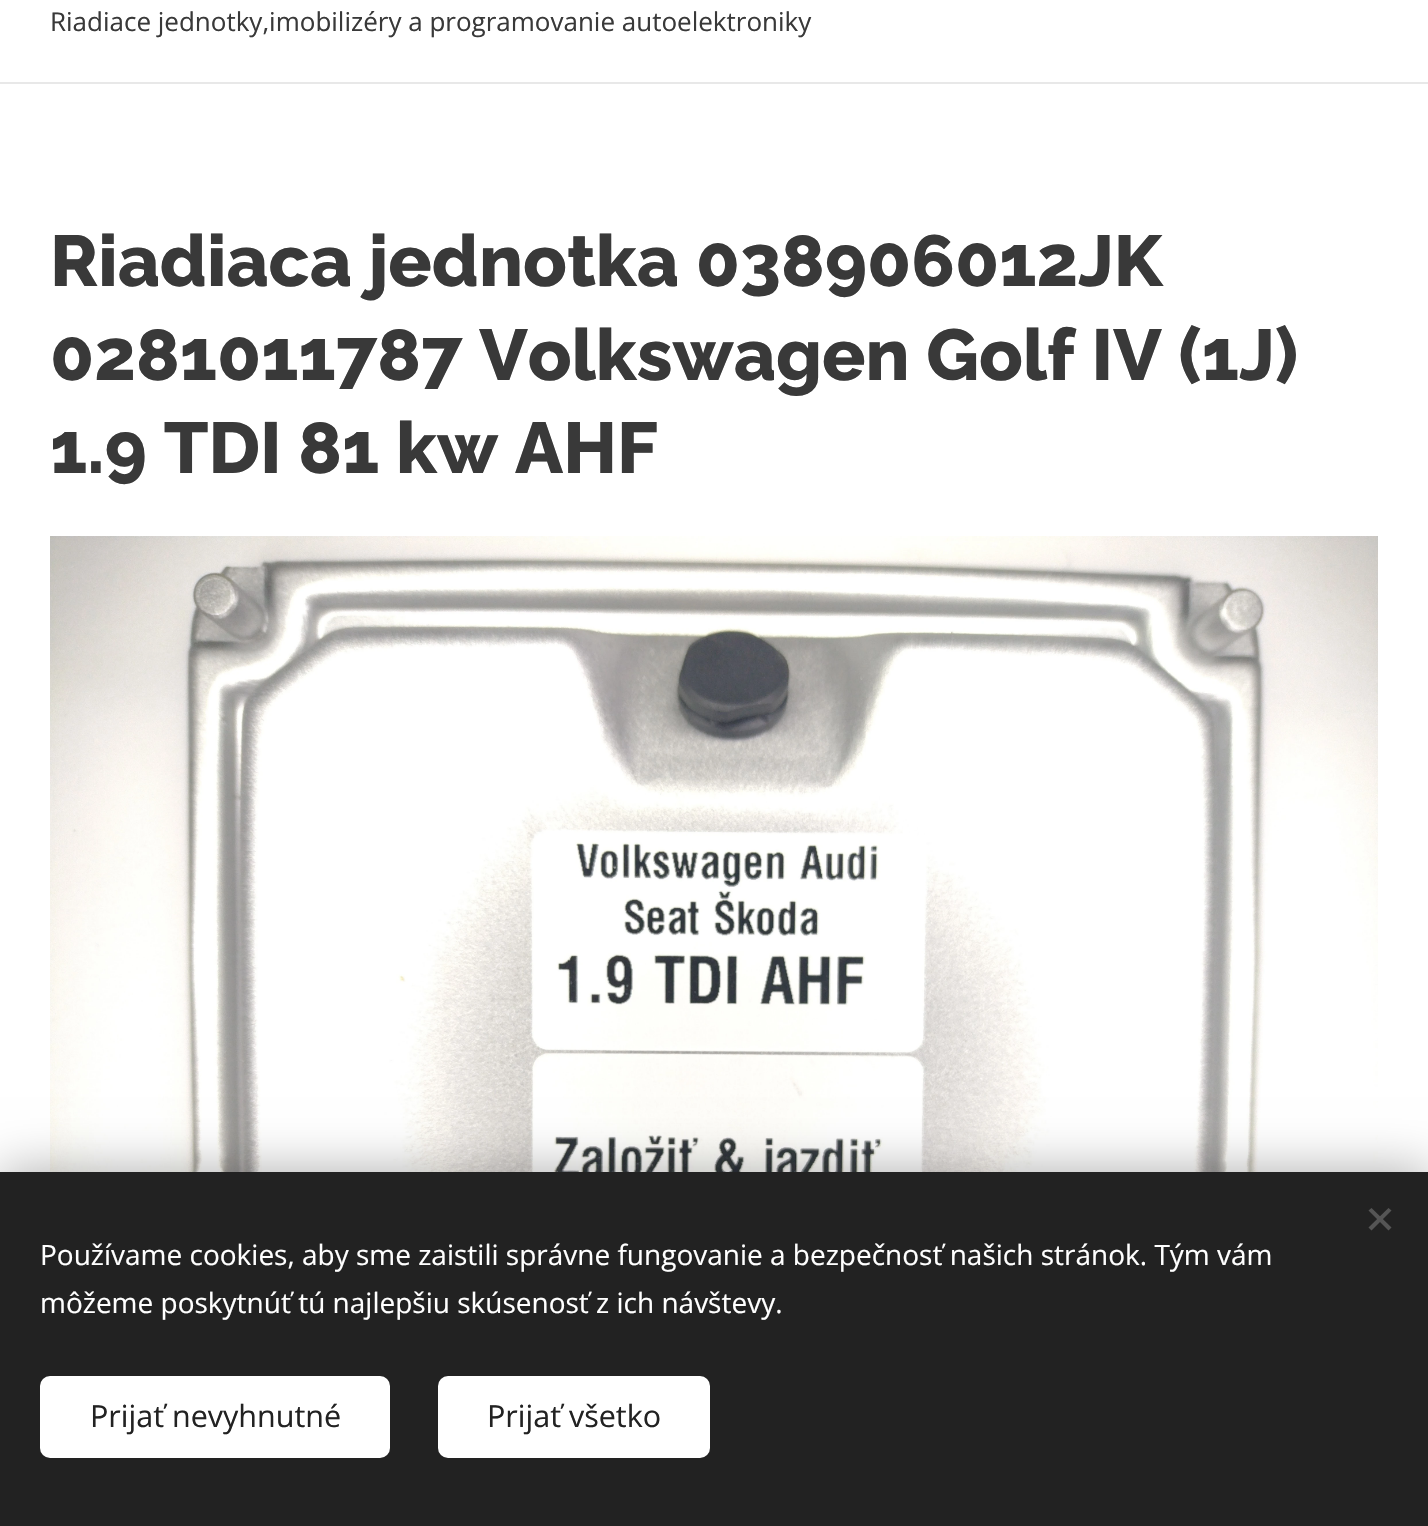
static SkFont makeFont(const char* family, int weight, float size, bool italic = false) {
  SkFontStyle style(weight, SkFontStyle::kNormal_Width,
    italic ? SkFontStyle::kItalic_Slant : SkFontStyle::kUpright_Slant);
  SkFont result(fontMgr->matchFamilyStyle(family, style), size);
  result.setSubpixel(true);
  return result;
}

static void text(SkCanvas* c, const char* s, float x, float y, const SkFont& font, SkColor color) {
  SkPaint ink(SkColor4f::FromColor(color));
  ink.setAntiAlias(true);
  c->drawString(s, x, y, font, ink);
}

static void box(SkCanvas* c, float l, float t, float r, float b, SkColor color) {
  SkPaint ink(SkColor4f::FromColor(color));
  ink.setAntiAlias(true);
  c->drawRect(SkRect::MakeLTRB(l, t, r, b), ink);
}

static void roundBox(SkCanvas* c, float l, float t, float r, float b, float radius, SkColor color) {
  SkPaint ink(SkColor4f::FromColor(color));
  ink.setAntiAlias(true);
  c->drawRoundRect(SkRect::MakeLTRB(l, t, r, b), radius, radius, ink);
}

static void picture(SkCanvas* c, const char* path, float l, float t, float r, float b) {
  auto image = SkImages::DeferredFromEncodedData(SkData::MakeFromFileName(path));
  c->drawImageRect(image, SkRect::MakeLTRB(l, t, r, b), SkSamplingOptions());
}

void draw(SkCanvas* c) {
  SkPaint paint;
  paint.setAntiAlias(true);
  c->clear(0xffffffff);
  SkFont face1 = makeFont("Open Sans", 400, 26);
  text(c, "Riadiace jednotky,imobilizéry a programovanie autoelektroniky", 50, 31, face1, 0xff393939);
  box(c, 0, 82, 1428, 84, 0xffe8e8e8);
  SkFont face2 = makeFont("Raleway", 800, 72);
  text(c, "Riadiaca jednotka 038906012JK", 50, 286, face2, 0xff393939);
  text(c, "0281011787 Volkswagen Golf IV (1J)", 50, 380, face2, 0xff393939);
  text(c, "1.9 TDI 81 kw AHF", 50, 473, face2, 0xff393939);
  picture(c, "img_01.png", 50, 536, 1378, 1172);
  paint.setColor(0x54000000);
  paint.setMaskFilter(SkMaskFilter::MakeBlur(kNormal_SkBlurStyle, 25));
  c->drawRect(SkRect::MakeLTRB(0, 1172, 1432, 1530), paint);
  paint.setMaskFilter(nullptr);
  box(c, 0, 1172, 1428, 1526, 0xff222222);
  paint.setColor(0xff555555);
  c->drawPath(SkPathBuilder().moveTo(1368.5f, 1227.5f).lineTo(1388.5f, 1208).lineTo(1391.5f, 1210.5f).lineTo(1371.5f, 1230.5f).close().detach(), paint);
  c->drawPath(SkPathBuilder().moveTo(1371.5f, 1208).lineTo(1391.5f, 1227.5f).lineTo(1388.5f, 1230.5f).lineTo(1368.5f, 1210.5f).close().detach(), paint);
  SkFont face3 = makeFont("Open Sans", 400, 28);
  text(c, "Používame cookies, aby sme zaistili správne fungovanie a bezpečnosť našich stránok. Tým vám", 40, 1265, face3, 0xffffffff);
  text(c, "môžeme poskytnúť tú najlepšiu skúsenosť z ich návštevy.", 40, 1313, face3, 0xffffffff);
  roundBox(c, 40, 1376, 390, 1458, 10, 0xffffffff);
  SkFont face4 = makeFont("Open Sans", 400, 30.5f);
  text(c, "Prijať nevyhnutné", 90, 1427, face4, 0xff222222);
  roundBox(c, 438, 1376, 710, 1458, 10, 0xffffffff);
  text(c, "Prijať všetko", 487, 1427, face4, 0xff222222);
}
